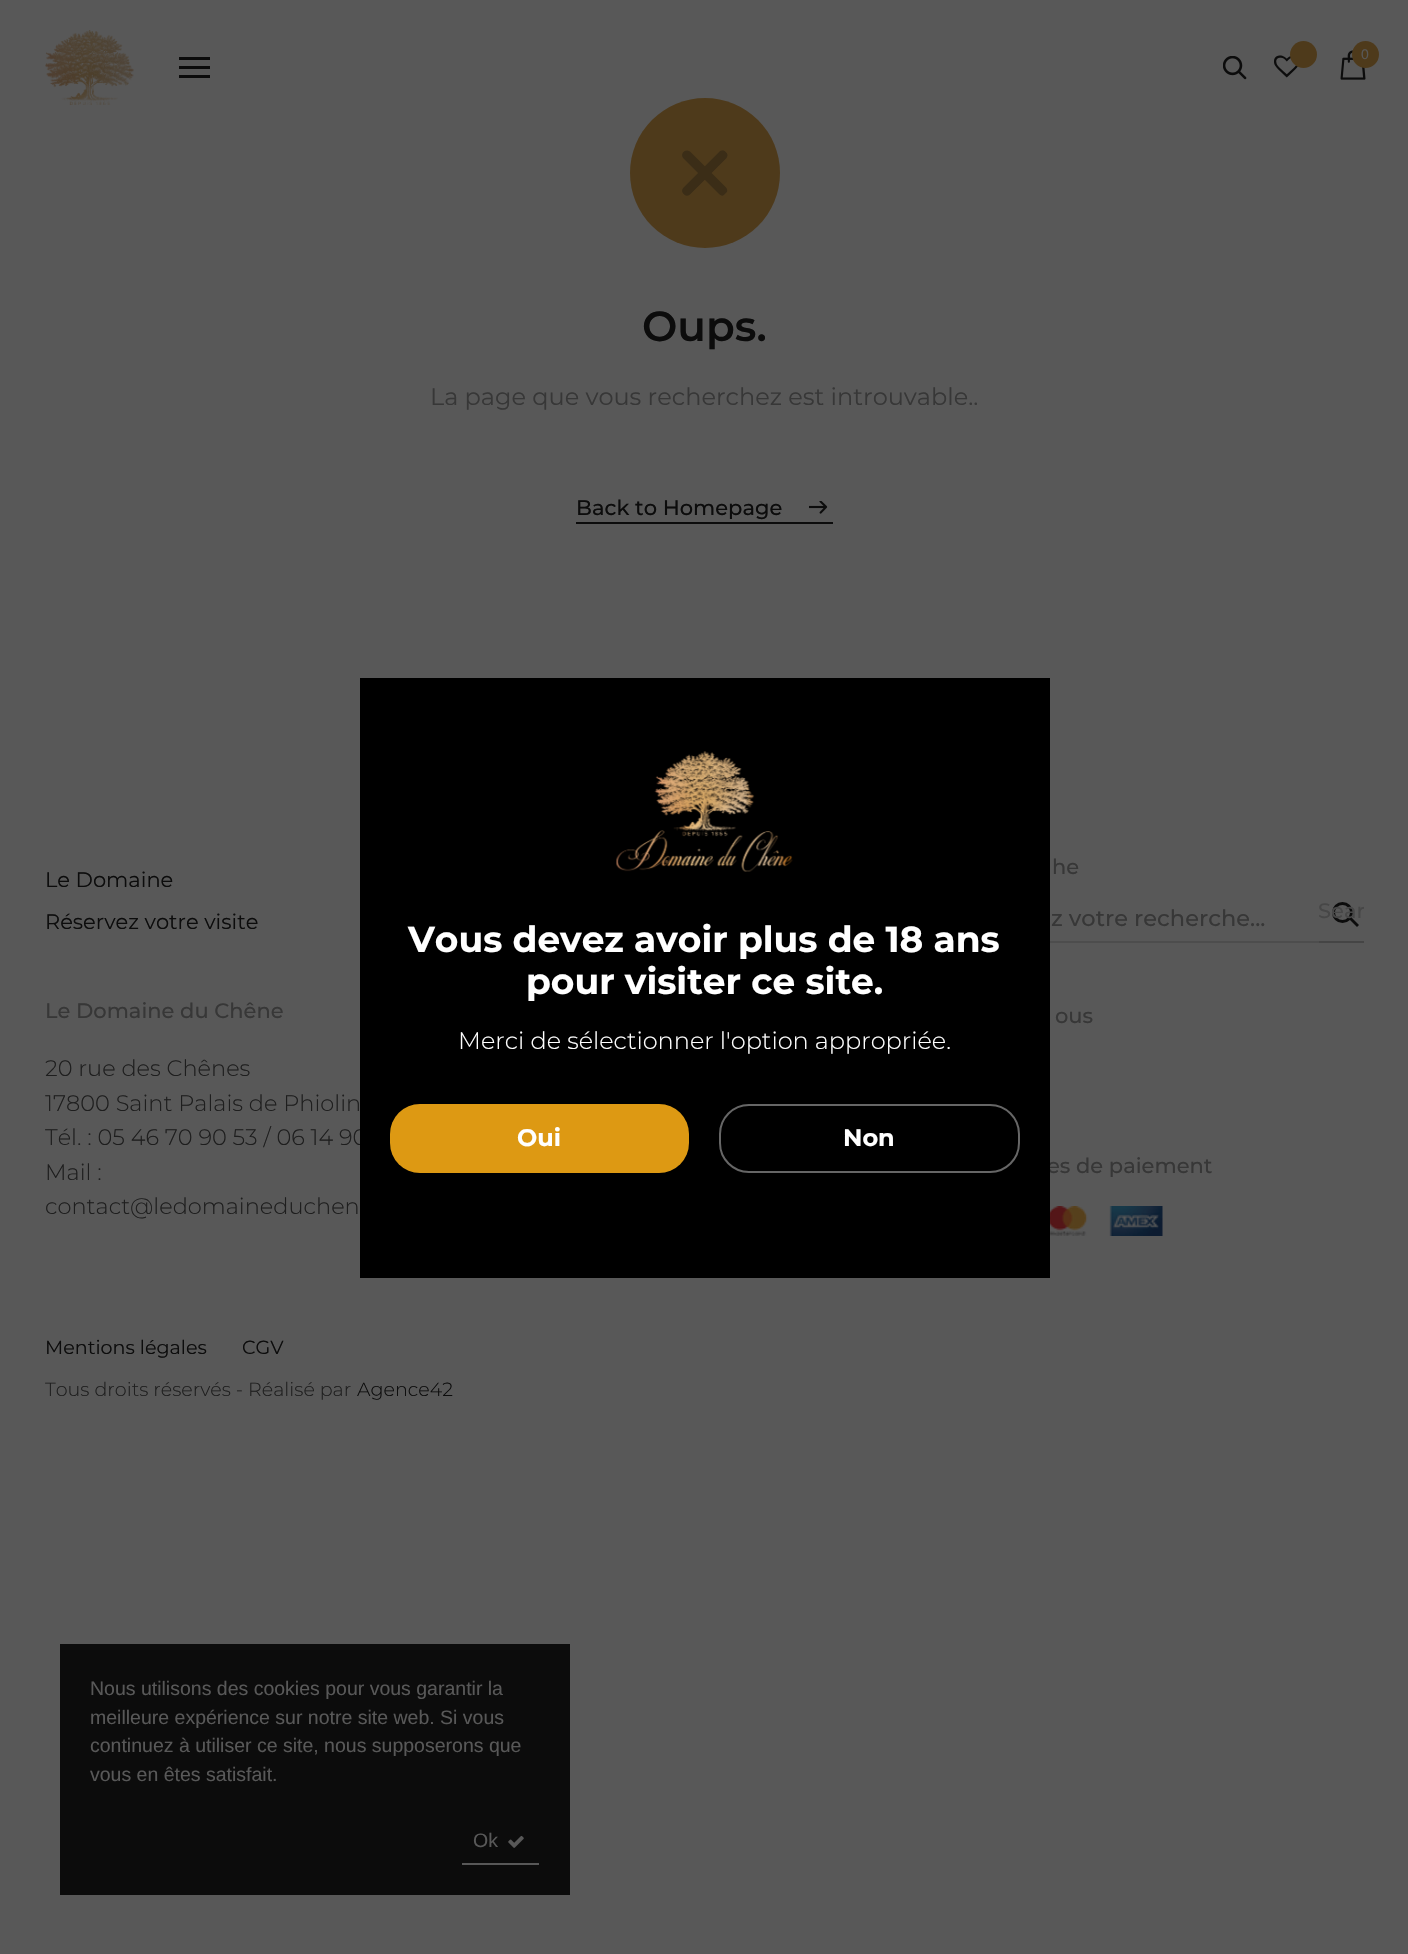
static SkFont makeFont(const char* family, int weight, float size, bool italic = false) {
  SkFontStyle style(weight, SkFontStyle::kNormal_Width,
    italic ? SkFontStyle::kItalic_Slant : SkFontStyle::kUpright_Slant);
  SkFont result(fontMgr->matchFamilyStyle(family, style), size);
  result.setSubpixel(true);
  return result;
}

static void text(SkCanvas* c, const char* s, float x, float y, const SkFont& font, SkColor color) {
  SkPaint ink(SkColor4f::FromColor(color));
  ink.setAntiAlias(true);
  c->drawString(s, x, y, font, ink);
}

static void box(SkCanvas* c, float l, float t, float r, float b, SkColor color) {
  SkPaint ink(SkColor4f::FromColor(color));
  ink.setAntiAlias(true);
  c->drawRect(SkRect::MakeLTRB(l, t, r, b), ink);
}

static void roundBox(SkCanvas* c, float l, float t, float r, float b, float radius, SkColor color) {
  SkPaint ink(SkColor4f::FromColor(color));
  ink.setAntiAlias(true);
  c->drawRoundRect(SkRect::MakeLTRB(l, t, r, b), radius, radius, ink);
}

static void picture(SkCanvas* c, const char* path, float l, float t, float r, float b) {
  auto image = SkImages::DeferredFromEncodedData(SkData::MakeFromFileName(path));
  c->drawImageRect(image, SkRect::MakeLTRB(l, t, r, b), SkSamplingOptions());
}

void draw(SkCanvas* c) {
  SkPaint paint;
  paint.setAntiAlias(true);
  c->clear(0xff585858);
  picture(c, "img_01.png", 45, 30, 134, 105);
  picture(c, "img_02.png", 1274, 55, 1298, 78);
  paint.setColor(0xff4e3a1b);
  c->drawCircle(1303.5f, 54.5f, 13.5f, paint);
  picture(c, "img_03.png", 1340, 50, 1366, 80);
  c->drawCircle(1365.5f, 54.5f, 13.5f, paint);
  SkFont face1 = makeFont("Liberation Sans", 400, 14);
  text(c, "0", 1361, 59, face1, 0xff585858);
  picture(c, "img_04.png", 1223, 56, 1247, 80);
  box(c, 179, 66, 210, 69, 0xff0c0c0c);
  box(c, 179, 57, 210, 60, 0xff0c0c0c);
  box(c, 179, 75, 210, 78, 0xff0c0c0c);
  c->drawCircle(705, 173, 75, paint);
  picture(c, "img_05.png", 682, 150, 728, 196);
  SkFont face2 = makeFont("Montserrat", 600, 42);
  text(c, "Oups.", 642, 341, face2, 0xff0c0c0c);
  SkFont face3 = makeFont("Montserrat", 400, 24);
  text(c, "La page que vous recherchez est introuvable..", 430, 405, face3, 0xff373737);
  box(c, 576, 522, 833, 524, 0xff0c0c0c);
  SkFont face4 = makeFont("Montserrat", 500, 21);
  text(c, "Back to Homepage", 576, 515, face4, 0xff0c0c0c);
  picture(c, "img_06.png", 809, 501, 828, 514);
  SkFont face5 = makeFont("Montserrat", 300, 22.5f);
  text(c, "Tél. : 05 46 70 90 53 / 06 14 90", 45, 1145, face5, 0xff1e1e1e);
  text(c, "es de paiement", 1047, 1173, face4, 0xff373737);
  box(c, 360, 678, 1050, 1278, 0xff000000);
  picture(c, "img_07.png", 616, 751, 793, 872);
  SkFont face6 = makeFont("Montserrat", 700, 36);
  text(c, "Vous devez avoir plus de 18 ans", 408, 952, face6, 0xffffffff);
  text(c, "pour visiter ce site.", 526, 994, face6, 0xffffffff);
  SkFont face7 = makeFont("Montserrat", 300, 24);
  text(c, "Merci de sélectionner l'option appropriée.", 458, 1049, face7, 0xffffffff);
  roundBox(c, 390, 1104, 689, 1173, 30, 0xffdd9913);
  SkFont face8 = makeFont("Montserrat", 700, 24);
  text(c, "Oui", 517, 1146, face8, 0xffffffff);
  paint.setStyle(SkPaint::kStroke_Style);
  paint.setStrokeWidth(2);
  paint.setColor(0xff666666);
  c->drawRoundRect(SkRect::MakeLTRB(720, 1105, 1019, 1172), 29, 29, paint);
  text(c, "Non", 843, 1146, face8, 0xffffffff);
  SkFont face9 = makeFont("Montserrat", 400, 21);
  text(c, "Le Domaine", 45, 887, face9, 0xff0c0c0c);
  text(c, "Réservez votre visite", 45, 929, face9, 0xff0c0c0c);
  text(c, "Le Domaine du Chêne", 45, 1018, face4, 0xff373737);
  text(c, "20 rue des Chênes", 45, 1076, face5, 0xff1e1e1e);
  text(c, "17800 Saint Palais de Phiolin", 45, 1111, face5, 0xff1e1e1e);
  text(c, "Mail :", 45, 1180, face5, 0xff1e1e1e);
  text(c, "contact@ledomaineduchen", 45, 1214, face5, 0xff1e1e1e);
  text(c, "he", 1052, 874, face4, 0xff373737);
  paint.setStrokeWidth(3);
  paint.setColor(0xff0c0c0c);
  c->drawCircle(1342.5f, 912.5f, 9, paint);
  box(c, 1050, 941, 1319, 943, 0xff4d4d4d);
  SkFont face10 = makeFont("Montserrat", 500, 22.5f);
  text(c, "z votre recherche...", 1051, 926, face10, 0xff373737);
  box(c, 1319, 941, 1364, 943, 0xff454545);
  paint.setStyle(SkPaint::kFill_Style);
  c->drawPath(SkPathBuilder().moveTo(1348.5f, 918.5f).lineTo(1350.5f, 916.5f).lineTo(1359, 925).lineTo(1357, 927).close().detach(), paint);
  c->save();
  c->clipRect(SkRect::MakeLTRB(1319, 882, 1364, 941));
  text(c, "Sear", 1318, 918, face4, 0xff474747);
  c->restore();
  text(c, "ous", 1055, 1023, face4, 0xff373737);
  picture(c, "img_08.png", 1050, 1206, 1163, 1236);
  SkFont face11 = makeFont("Montserrat", 400, 19.1f);
  text(c, "Mentions légales", 45, 1354, face11, 0xff0c0c0c);
  text(c, "CGV", 242, 1354, face11, 0xff0c0c0c);
  SkFont face12 = makeFont("Montserrat", 300, 19.1f);
  text(c, "Tous droits réservés - Réalisé par", 45, 1396, face12, 0xff1e1e1e);
  text(c, "Agence42", 357, 1396, face12, 0xff0c0c0c);
  box(c, 60, 1644, 570, 1895, 0xff0c0c0c);
  SkFont face13 = makeFont("Liberation Sans", 400, 19.5f);
  text(c, "Nous utilisons des cookies pour vous garantir la", 90, 1695, face13, 0xff585858);
  text(c, "meilleure expérience sur notre site web. Si vous", 90, 1724, face13, 0xff585858);
  text(c, "continuez à utiliser ce site, nous supposerons que", 90, 1752, face13, 0xff585858);
  text(c, "vous en êtes satisfait.", 90, 1781, face13, 0xff585858);
  box(c, 462, 1863, 539, 1865, 0xff585858);
  text(c, "Ok", 473, 1847, face13, 0xff585858);
  picture(c, "img_09.png", 508, 1835, 524, 1848);
}
